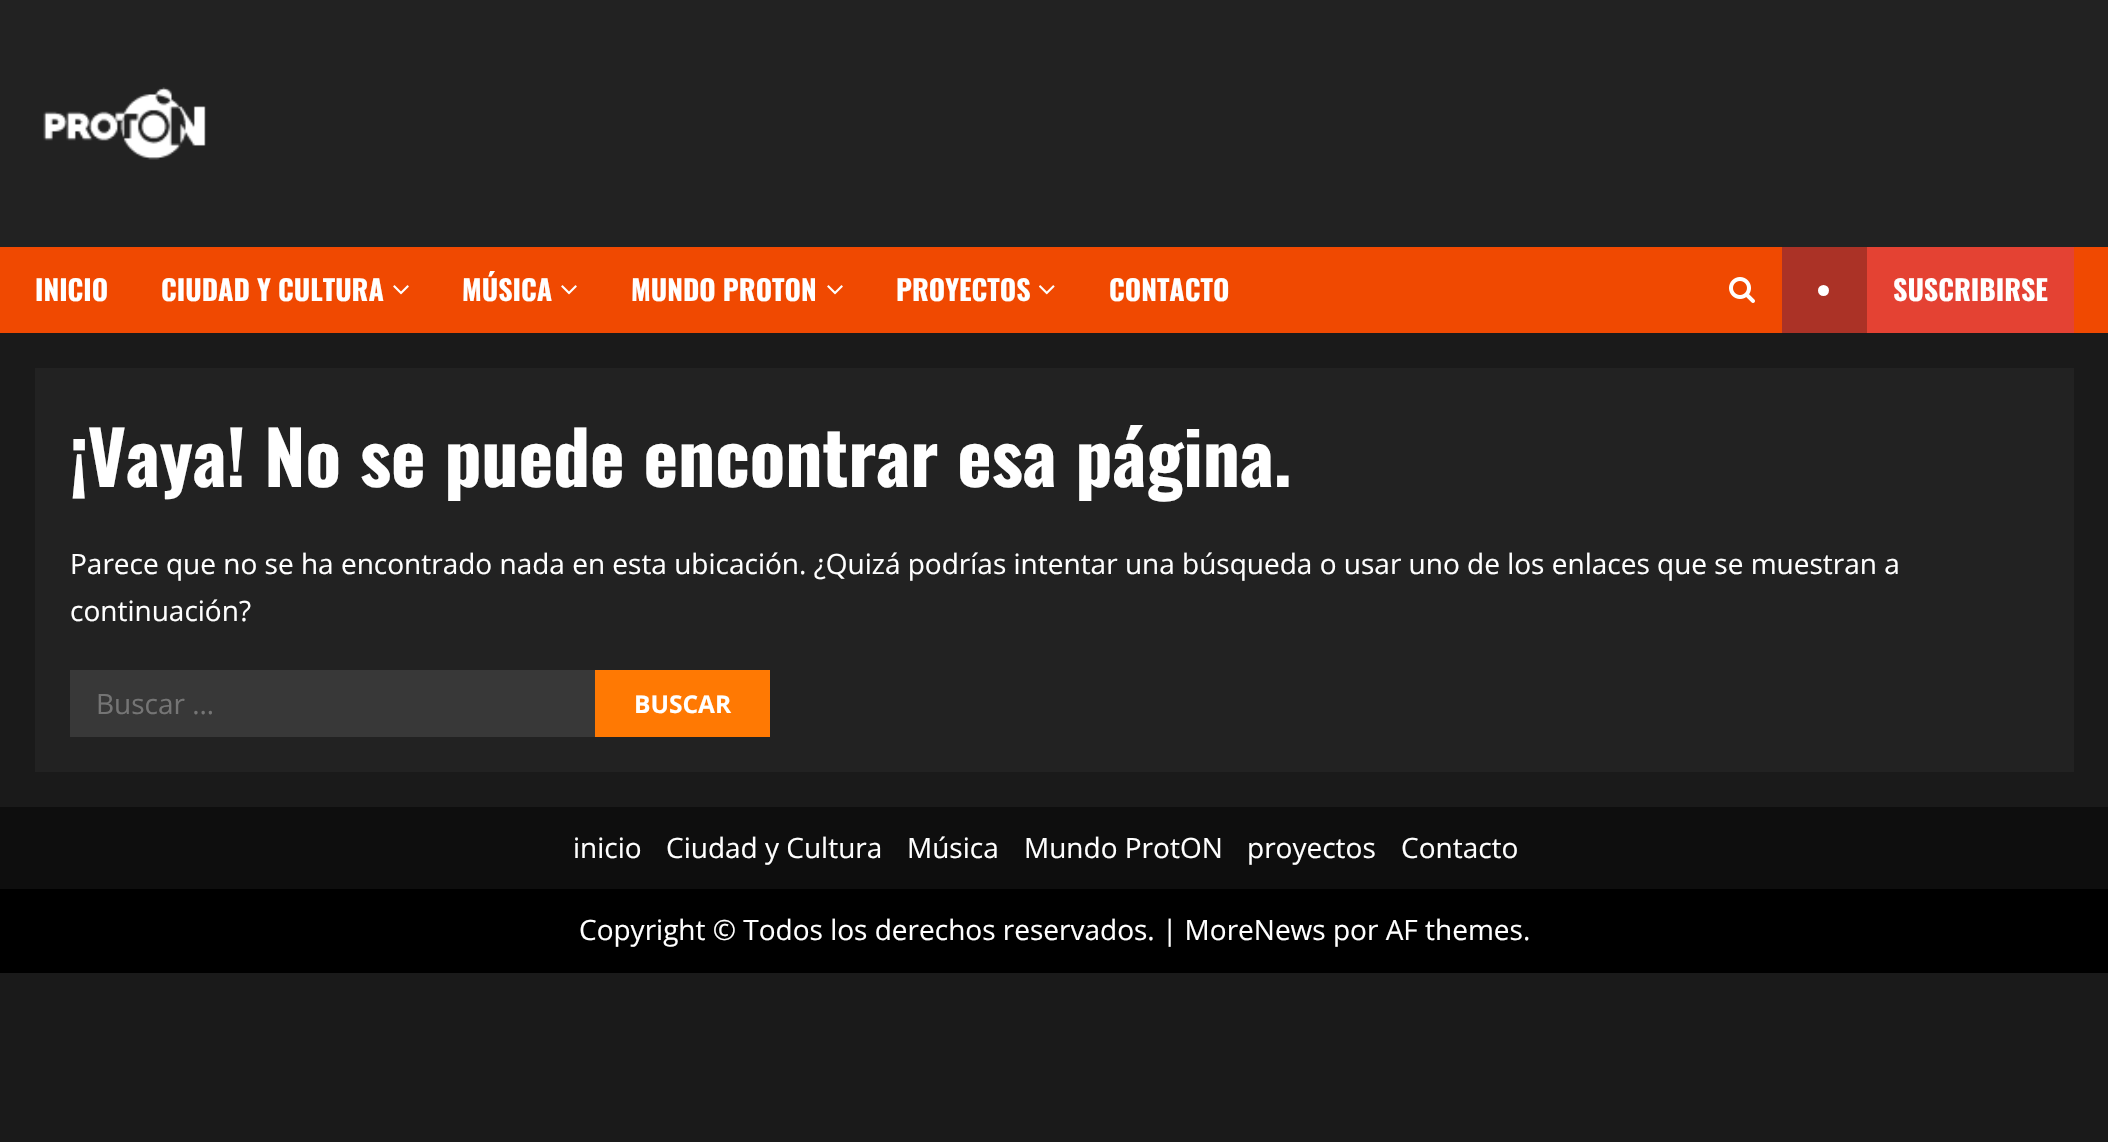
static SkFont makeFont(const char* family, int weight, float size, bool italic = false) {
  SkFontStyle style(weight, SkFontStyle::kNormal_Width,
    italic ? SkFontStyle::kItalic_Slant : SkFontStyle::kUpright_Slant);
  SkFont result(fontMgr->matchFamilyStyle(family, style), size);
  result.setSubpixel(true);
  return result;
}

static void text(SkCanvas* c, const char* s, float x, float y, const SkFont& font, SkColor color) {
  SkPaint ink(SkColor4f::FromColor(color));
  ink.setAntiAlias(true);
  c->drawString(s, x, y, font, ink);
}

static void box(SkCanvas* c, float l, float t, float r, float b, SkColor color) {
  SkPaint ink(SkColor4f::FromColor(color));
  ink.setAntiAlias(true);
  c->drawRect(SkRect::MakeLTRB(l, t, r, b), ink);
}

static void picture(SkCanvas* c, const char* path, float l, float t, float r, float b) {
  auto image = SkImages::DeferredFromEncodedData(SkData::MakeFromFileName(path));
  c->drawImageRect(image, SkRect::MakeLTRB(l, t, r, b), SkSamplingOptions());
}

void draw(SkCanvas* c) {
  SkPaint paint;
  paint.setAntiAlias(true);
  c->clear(0xff1a1a1a);
  box(c, 0, 0, 2108, 247, 0xff222222);
  picture(c, "img_01.png", 43, 87, 206, 160);
  box(c, 0, 247, 2108, 333, 0xfff04901);
  SkFont face1 = makeFont("Oswald", 700, 28);
  text(c, "INICIO", 35, 301, face1, 0xffffffff);
  text(c, "CIUDAD Y CULTURA", 161, 301, face1, 0xffffffff);
  picture(c, "img_02.png", 393, 285, 409, 295);
  text(c, "MÚSICA", 462, 301, face1, 0xffffffff);
  picture(c, "img_02.png", 561, 285, 577, 295);
  text(c, "MUNDO PROTON", 631, 301, face1, 0xffffffff);
  picture(c, "img_02.png", 827, 285, 843, 295);
  text(c, "PROYECTOS", 896, 301, face1, 0xffffffff);
  picture(c, "img_03.png", 1039, 285, 1055, 295);
  text(c, "CONTACTO", 1109, 301, face1, 0xffffffff);
  picture(c, "img_04.png", 1729, 277, 1755, 303);
  box(c, 1867, 247, 2074, 333, 0xffe44233);
  box(c, 1782, 247, 1867, 333, 0xffab3226);
  paint.setColor(0xffffffff);
  c->drawCircle(1823.5f, 290.5f, 5.5f, paint);
  text(c, "SUSCRIBIRSE", 1893, 301, face1, 0xffffffff);
  box(c, 35, 368, 2074, 772, 0xff222222);
  SkFont face2 = makeFont("Oswald", 700, 73.5f);
  text(c, "¡Vaya! No se puede encontrar esa página.", 70, 487, face2, 0xffffffff);
  SkFont face3 = makeFont("Open Sans", 400, 28);
  text(c, "Parece que no se ha encontrado nada en esta ubicación. ¿Quizá podrías intentar una búsqueda o usar uno de los enlaces que se muestran a", 70, 574, face3, 0xffffffff);
  text(c, "continuación?", 70, 621, face3, 0xffffffff);
  box(c, 70, 670, 595, 737, 0xff383838);
  text(c, "Buscar …", 96, 714, face3, 0xff757575);
  box(c, 595, 670, 770, 737, 0xffff7903);
  SkFont face4 = makeFont("Open Sans", 700, 24.5f);
  text(c, "BUSCAR", 634, 713, face4, 0xffffffff);
  box(c, 0, 807, 2108, 889, 0xff0e0e0e);
  text(c, "inicio", 573, 858, face3, 0xffffffff);
  text(c, "Ciudad y Cultura", 666, 858, face3, 0xffffffff);
  text(c, "Música", 907, 858, face3, 0xffffffff);
  text(c, "Mundo ProtON", 1024, 858, face3, 0xffffffff);
  text(c, "proyectos", 1247, 858, face3, 0xffffffff);
  text(c, "Contacto", 1401, 858, face3, 0xffffffff);
  box(c, 0, 889, 2108, 973, 0xff000000);
  text(c, "Copyright © Todos los derechos reservados. | MoreNews por AF themes.", 579, 940, face3, 0xffffffff);
}
